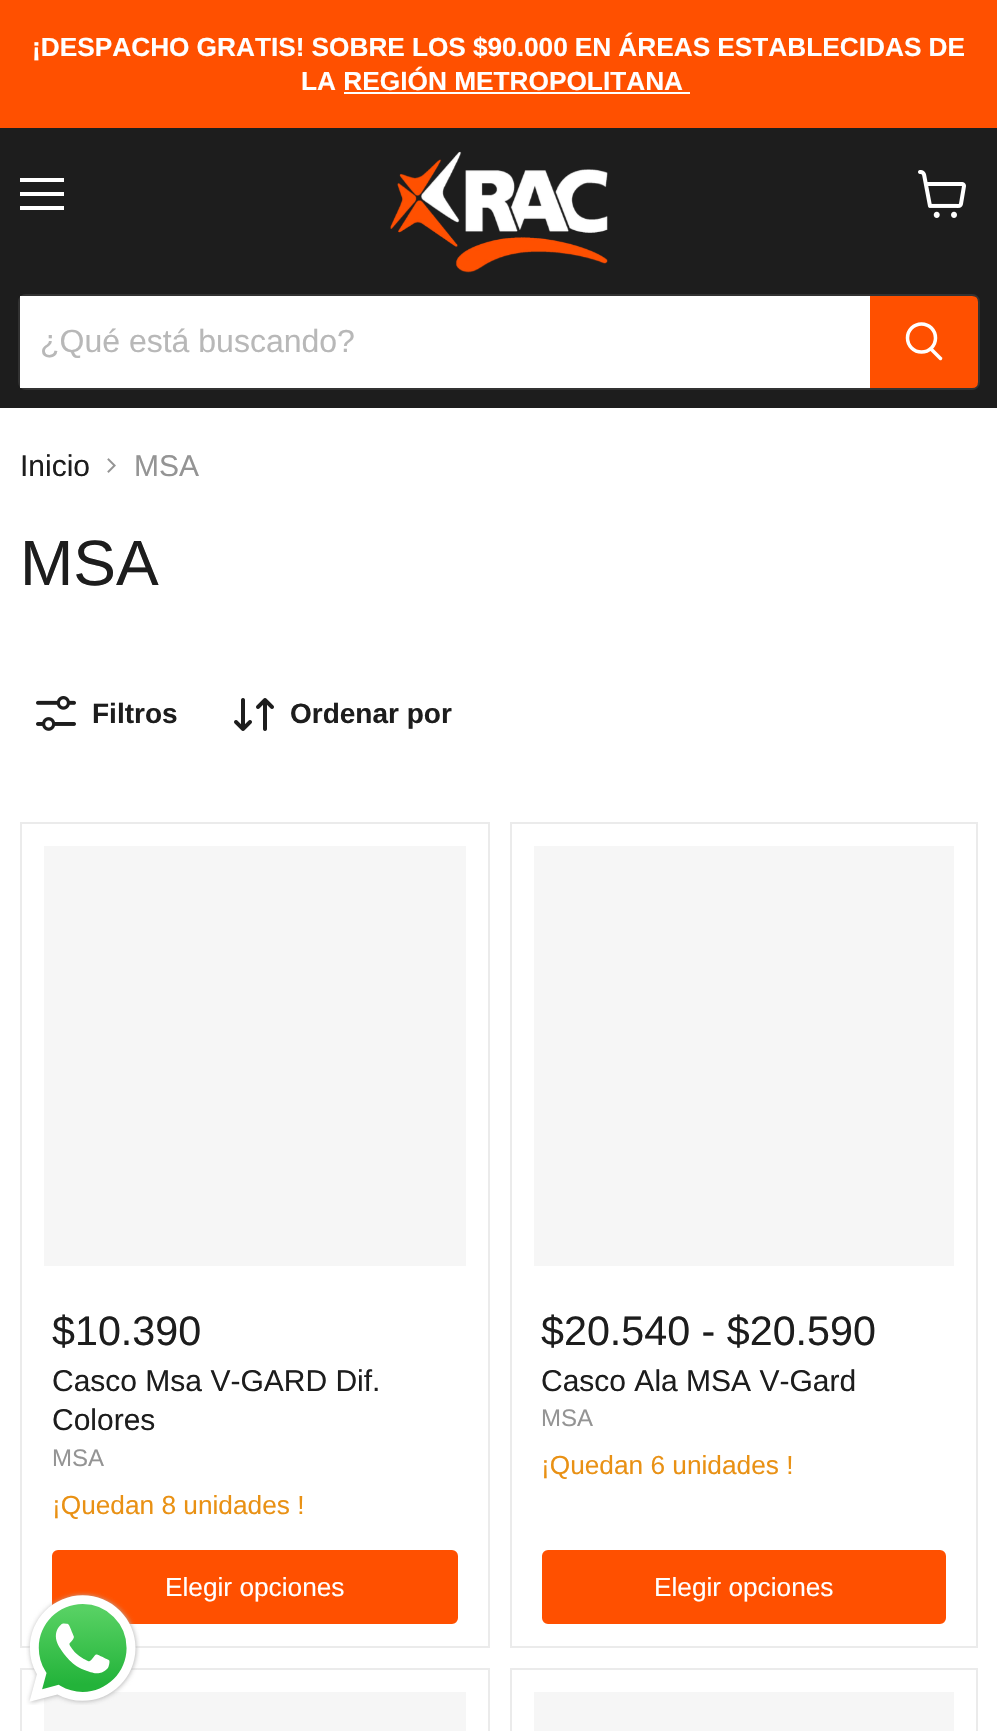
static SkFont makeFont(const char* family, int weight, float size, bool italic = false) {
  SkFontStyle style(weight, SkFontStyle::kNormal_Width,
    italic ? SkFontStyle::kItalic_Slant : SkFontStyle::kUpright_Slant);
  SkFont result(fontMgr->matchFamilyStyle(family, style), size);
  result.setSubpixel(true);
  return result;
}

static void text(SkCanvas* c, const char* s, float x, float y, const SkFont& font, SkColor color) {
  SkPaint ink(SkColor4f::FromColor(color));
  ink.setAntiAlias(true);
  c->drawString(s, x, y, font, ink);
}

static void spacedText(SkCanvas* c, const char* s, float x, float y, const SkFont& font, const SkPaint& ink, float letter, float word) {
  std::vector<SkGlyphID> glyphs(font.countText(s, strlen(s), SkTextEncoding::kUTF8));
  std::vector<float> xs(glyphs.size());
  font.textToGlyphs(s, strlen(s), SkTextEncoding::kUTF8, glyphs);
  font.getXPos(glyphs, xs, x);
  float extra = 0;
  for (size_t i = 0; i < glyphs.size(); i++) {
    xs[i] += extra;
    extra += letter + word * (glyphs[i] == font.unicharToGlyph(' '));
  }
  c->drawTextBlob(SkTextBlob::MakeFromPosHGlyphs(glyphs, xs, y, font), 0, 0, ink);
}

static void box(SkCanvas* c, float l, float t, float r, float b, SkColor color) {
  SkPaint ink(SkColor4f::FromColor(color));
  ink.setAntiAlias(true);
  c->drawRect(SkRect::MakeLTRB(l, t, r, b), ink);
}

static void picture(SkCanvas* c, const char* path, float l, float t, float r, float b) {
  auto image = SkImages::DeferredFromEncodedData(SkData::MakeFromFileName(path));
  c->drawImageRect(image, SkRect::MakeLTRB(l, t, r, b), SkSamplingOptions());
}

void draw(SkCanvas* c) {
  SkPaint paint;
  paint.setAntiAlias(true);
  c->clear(0xffffffff);
  box(c, 0, 0, 997, 128, 0xffff5000);
  SkFont face1 = makeFont("Liberation Sans", 700, 26.25f);
  paint.setColor(0xffffffff);
  spacedText(c, "¡DESPACHO GRATIS! SOBRE LOS $90.000 EN ÁREAS ESTABLECIDAS DE", 32, 56, face1, paint, 0, -0.25f);
  text(c, "LA REGIÓN METROPOLITANA", 301, 90, face1, 0xffffffff);
  box(c, 344, 92, 690, 94, 0xffffffff);
  box(c, 0, 128, 997, 408, 0xff1d1d1d);
  box(c, 20, 178, 64, 182, 0xffffffff);
  box(c, 20, 192, 64, 196, 0xffffffff);
  box(c, 20, 206, 64, 210, 0xffffffff);
  picture(c, "img_01.png", 918, 170, 966, 218);
  picture(c, "img_02.png", 390, 151, 608, 273);
  paint.setStyle(SkPaint::kStroke_Style);
  paint.setStrokeWidth(2);
  paint.setColor(0x33808080);
  c->drawRoundRect(SkRect::MakeLTRB(19, 295, 979, 389), 7, 7, paint);
  box(c, 20, 296, 870, 388, 0xffffffff);
  SkFont face2 = makeFont("Liberation Sans", 400, 32);
  text(c, "¿Qué está buscando?", 40, 352, face2, 0xffb8b8b8);
  paint.setStyle(SkPaint::kFill_Style);
  paint.setColor(0xffff5000);
  c->drawPath(SkPathBuilder().moveTo(871, 297).lineTo(972, 297).cubicTo(975, 297, 977, 299, 977, 302).lineTo(977, 382).cubicTo(977, 385, 975, 387, 972, 387).lineTo(871, 387).close().detach(), paint);
  paint.setStyle(SkPaint::kStroke_Style);
  c->drawPath(SkPathBuilder().moveTo(871, 297).lineTo(972, 297).cubicTo(975, 297, 977, 299, 977, 302).lineTo(977, 382).cubicTo(977, 385, 975, 387, 972, 387).lineTo(871, 387).close().detach(), paint);
  paint.setStrokeWidth(3.5f);
  paint.setStrokeCap(SkPaint::kRound_Cap);
  paint.setColor(0xffffffff);
  c->drawPath(SkPathBuilder().moveTo(940.5f, 358.5f).lineTo(931, 349).detach(), paint);
  paint.setStrokeCap(SkPaint::kButt_Cap);
  c->drawCircle(921.5f, 338, 14, paint);
  SkFont face3 = makeFont("Liberation Sans", 400, 30);
  text(c, "Inicio", 20, 476, face3, 0xff1d1d1d);
  picture(c, "img_03.png", 107, 458, 116, 473);
  text(c, "MSA", 134, 476, face3, 0xff949494);
  SkFont face4 = makeFont("Liberation Sans", 400, 64);
  text(c, "MSA", 20, 585, face4, 0xff1d1d1d);
  picture(c, "img_04.png", 36, 696, 76, 731);
  SkFont face5 = makeFont("Liberation Sans", 700, 28);
  text(c, "Filtros", 92, 723, face5, 0xff1d1d1d);
  picture(c, "img_05.png", 234, 698, 274, 731);
  text(c, "Ordenar por", 290, 723, face5, 0xff1d1d1d);
  paint.setStrokeWidth(2);
  paint.setColor(0xffebebeb);
  c->drawRect(SkRect::MakeLTRB(21, 823, 489, 1647), paint);
  box(c, 44, 846, 466, 1266, 0xfff6f6f6);
  SkFont face6 = makeFont("Liberation Sans", 400, 41.25f);
  text(c, "$10.390", 52, 1345, face6, 0xff1d1d1d);
  text(c, "Casco Msa V-GARD Dif.", 52, 1391, face3, 0xff1d1d1d);
  text(c, "Colores", 52, 1430, face3, 0xff1d1d1d);
  SkFont face7 = makeFont("Liberation Sans", 400, 24);
  text(c, "MSA", 52, 1466, face7, 0xff949494);
  SkFont face8 = makeFont("Liberation Sans", 400, 26.25f);
  text(c, "¡Quedan 8 unidades !", 52, 1514, face8, 0xffe99114);
  paint.setStyle(SkPaint::kFill_Style);
  paint.setColor(0xffff5000);
  c->drawRoundRect(SkRect::MakeLTRB(53, 1551, 457, 1623), 5, 5, paint);
  paint.setStyle(SkPaint::kStroke_Style);
  c->drawRoundRect(SkRect::MakeLTRB(53, 1551, 457, 1623), 5, 5, paint);
  text(c, "Elegir opciones", 165, 1596, face8, 0xffffffff);
  paint.setColor(0xffebebeb);
  c->drawRect(SkRect::MakeLTRB(511, 823, 977, 1647), paint);
  box(c, 534, 846, 954, 1266, 0xfff6f6f6);
  text(c, "$20.540 - $20.590", 541, 1345, face6, 0xff1d1d1d);
  text(c, "Casco Ala MSA V-Gard", 541, 1391, face3, 0xff1d1d1d);
  text(c, "MSA", 541, 1426, face7, 0xff949494);
  text(c, "¡Quedan 6 unidades !", 541, 1474, face8, 0xffe99114);
  paint.setStyle(SkPaint::kFill_Style);
  paint.setColor(0xffff5000);
  c->drawRoundRect(SkRect::MakeLTRB(543, 1551, 945, 1623), 5, 5, paint);
  paint.setStyle(SkPaint::kStroke_Style);
  c->drawRoundRect(SkRect::MakeLTRB(543, 1551, 945, 1623), 5, 5, paint);
  text(c, "Elegir opciones", 654, 1596, face8, 0xffffffff);
  paint.setColor(0xffebebeb);
  c->drawRect(SkRect::MakeLTRB(21, 1669, 489, 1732), paint);
  box(c, 44, 1692, 466, 1731, 0xfff6f6f6);
  c->drawRect(SkRect::MakeLTRB(511, 1669, 977, 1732), paint);
  box(c, 534, 1692, 954, 1731, 0xfff6f6f6);
  picture(c, "img_06.png", 26, 1591, 140, 1705);
}
